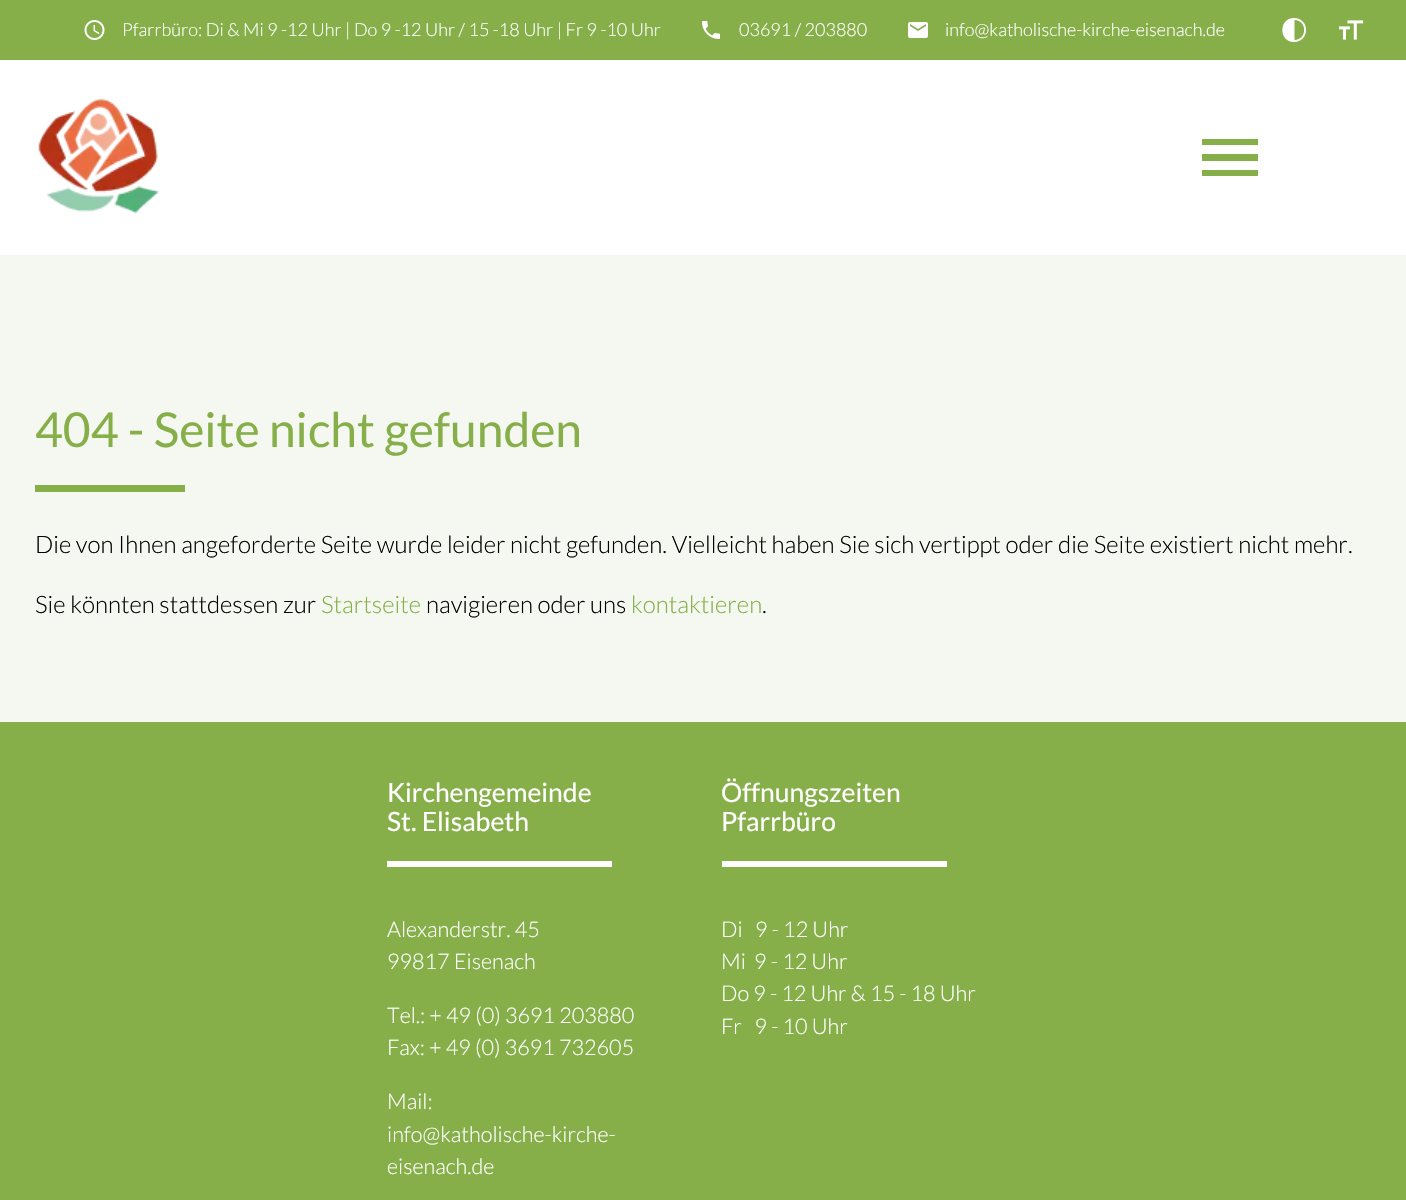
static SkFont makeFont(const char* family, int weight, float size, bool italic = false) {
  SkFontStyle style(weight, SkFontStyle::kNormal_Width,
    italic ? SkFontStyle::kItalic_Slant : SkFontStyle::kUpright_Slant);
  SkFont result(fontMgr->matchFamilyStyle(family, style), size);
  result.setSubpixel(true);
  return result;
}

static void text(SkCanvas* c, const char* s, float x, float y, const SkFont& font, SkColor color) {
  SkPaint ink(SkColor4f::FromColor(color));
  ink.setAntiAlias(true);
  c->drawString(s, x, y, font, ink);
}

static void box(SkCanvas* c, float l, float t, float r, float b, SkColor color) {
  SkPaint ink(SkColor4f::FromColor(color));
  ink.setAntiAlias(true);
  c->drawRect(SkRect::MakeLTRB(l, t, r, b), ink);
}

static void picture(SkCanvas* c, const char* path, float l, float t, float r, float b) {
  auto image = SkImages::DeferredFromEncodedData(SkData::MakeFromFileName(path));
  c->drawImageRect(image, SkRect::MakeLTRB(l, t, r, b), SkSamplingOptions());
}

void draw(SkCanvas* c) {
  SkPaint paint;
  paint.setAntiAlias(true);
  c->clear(0xfff4f8f0);
  box(c, 0, 0, 1406, 60, 0xff86af49);
  picture(c, "img_01.png", 84, 20, 105, 40);
  SkFont face1 = makeFont("Lato", 300, 18);
  text(c, "Pfarrbüro: Di & Mi 9 -12 Uhr | Do 9 -12 Uhr / 15 -18 Uhr | Fr 9 -10 Uhr", 122, 36, face1, 0xffffffff);
  picture(c, "img_02.png", 702, 21, 720, 39);
  text(c, "03691 / 203880", 739, 36, face1, 0xffffffff);
  picture(c, "img_03.png", 908, 22, 928, 38);
  text(c, "info@katholische-kirche-eisenach.de", 945, 36, face1, 0xffffffff);
  paint.setColor(0xffffffff);
  c->drawPath(SkPathBuilder().moveTo(1294, 42).cubicTo(1278.5f, 42, 1278.5f, 18, 1294, 18).cubicTo(1310, 18, 1310, 42, 1294, 42).close().moveTo(1294.5f, 40).cubicTo(1307.5f, 39.5f, 1307.5f, 20.5f, 1294.5f, 20).close().detach(), paint);
  picture(c, "img_04.png", 1339, 20, 1364, 40);
  box(c, 0, 60, 1406, 255, 0xffffffff);
  picture(c, "img_05.png", 38, 98, 160, 214);
  paint.setColor(0xff86af49);
  c->drawPath(SkPathBuilder().moveTo(1202, 139).lineTo(1258, 139).lineTo(1258, 145).lineTo(1202, 145).close().moveTo(1202, 161).lineTo(1202, 154).lineTo(1258, 154).lineTo(1258, 161).close().moveTo(1202, 176).lineTo(1202, 170).lineTo(1258, 170).lineTo(1258, 176).close().detach(), paint);
  SkFont face2 = makeFont("Lato", 400, 48);
  text(c, "404 - Seite nicht gefunden", 35, 447, face2, 0xff86af49);
  box(c, 35, 485, 185, 492, 0xff86af49);
  SkFont face3 = makeFont("Lato", 300, 24);
  text(c, "Die von Ihnen angeforderte Seite wurde leider nicht gefunden. Vielleicht haben Sie sich vertippt oder die Seite existiert nicht mehr.", 35, 553, face3, 0xff000000);
  text(c, "Sie könnten stattdessen zur", 35, 613, face3, 0xff000000);
  text(c, "Startseite", 321, 613, face3, 0xff86af49);
  text(c, "navigieren oder uns", 426, 613, face3, 0xff000000);
  text(c, "kontaktieren", 631, 613, face3, 0xff86af49);
  text(c, ".", 762, 613, face3, 0xff000000);
  box(c, 0, 722, 1406, 1200, 0xff86af49);
  SkFont face4 = makeFont("Lato", 400, 26.5f);
  text(c, "Kirchengemeinde", 387, 802, face4, 0xffffffff);
  text(c, "St. Elisabeth", 387, 831, face4, 0xffffffff);
  box(c, 387, 861, 612, 867, 0xffffffff);
  SkFont face5 = makeFont("Lato", 300, 21.6f);
  text(c, "Alexanderstr. 45", 387, 937, face5, 0xffffffff);
  text(c, "99817 Eisenach", 387, 969, face5, 0xffffffff);
  text(c, "Tel.: + 49 (0) 3691 203880", 387, 1023, face5, 0xffffffff);
  text(c, "Fax: + 49 (0) 3691 732605", 387, 1055, face5, 0xffffffff);
  text(c, "Mail:", 387, 1109, face5, 0xffffffff);
  text(c, "info@katholische-kirche-", 387, 1142, face5, 0xffffffff);
  text(c, "eisenach.de", 387, 1174, face5, 0xffffffff);
  text(c, "Öffnungszeiten", 721, 802, face4, 0xffffffff);
  text(c, "Pfarrbüro", 721, 831, face4, 0xffffffff);
  box(c, 722, 861, 947, 867, 0xffffffff);
  text(c, "Di   9 - 12 Uhr", 721, 937, face5, 0xffffffff);
  text(c, "Mi  9 - 12 Uhr", 721, 969, face5, 0xffffffff);
  text(c, "Do 9 - 12 Uhr & 15 - 18 Uhr", 721, 1001, face5, 0xffffffff);
  text(c, "Fr   9 - 10 Uhr", 721, 1034, face5, 0xffffffff);
}
